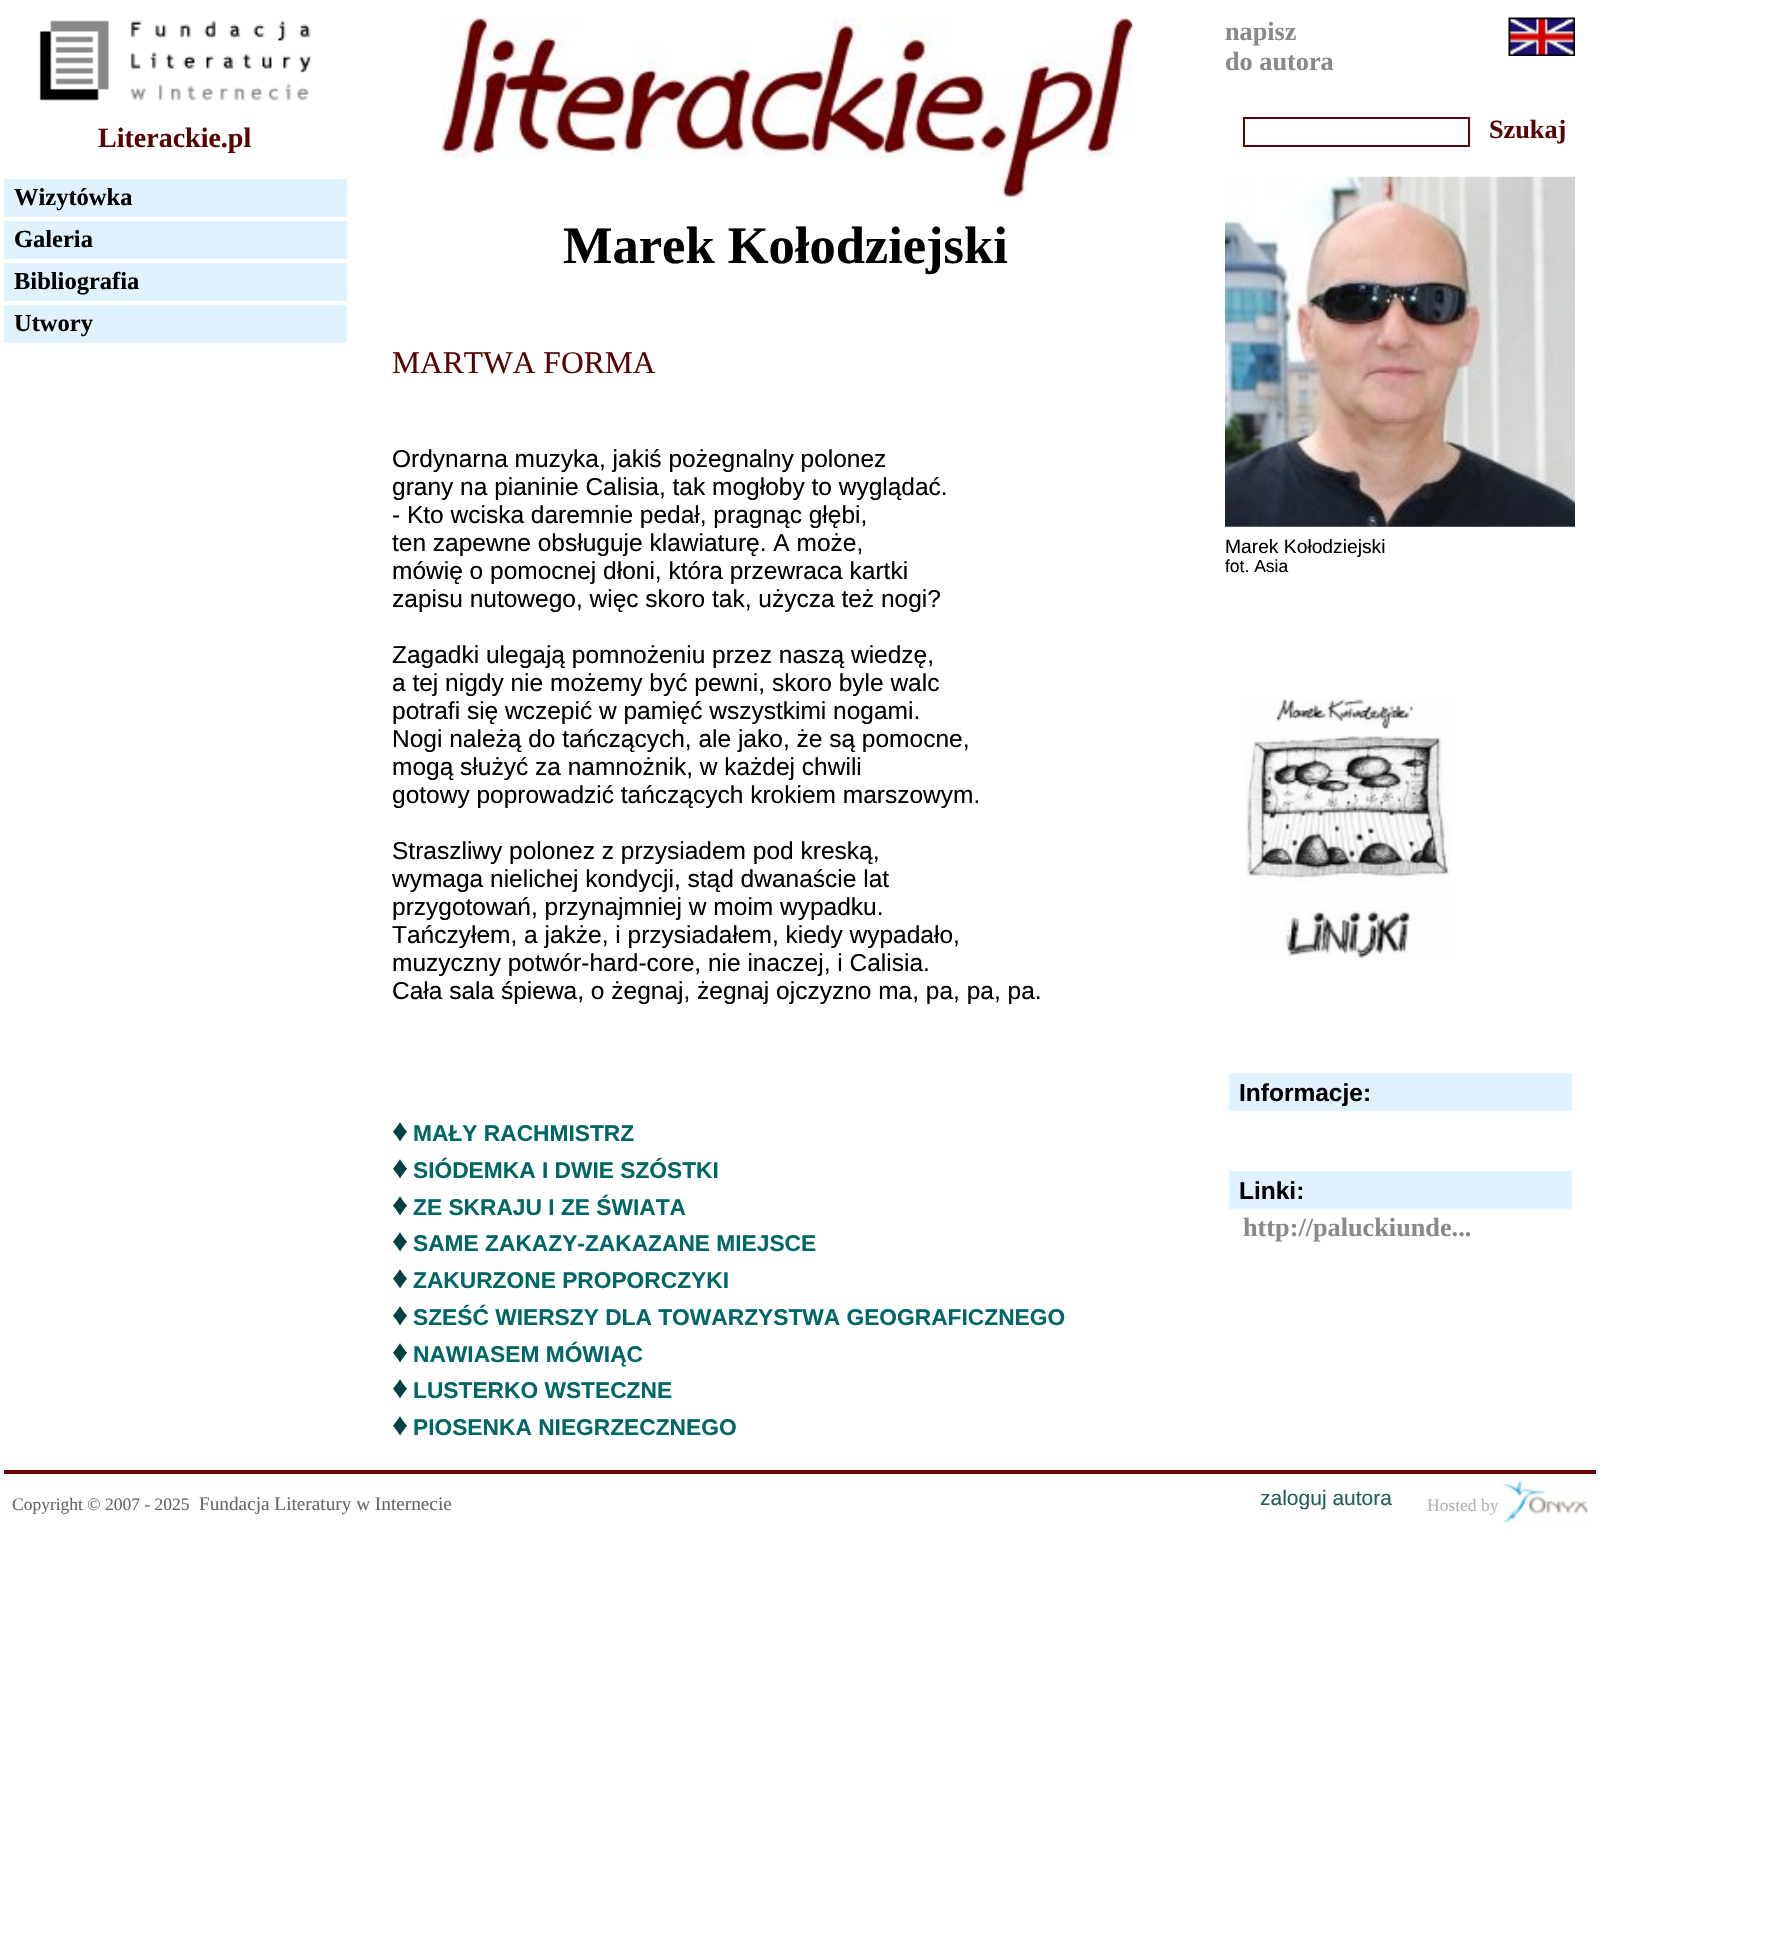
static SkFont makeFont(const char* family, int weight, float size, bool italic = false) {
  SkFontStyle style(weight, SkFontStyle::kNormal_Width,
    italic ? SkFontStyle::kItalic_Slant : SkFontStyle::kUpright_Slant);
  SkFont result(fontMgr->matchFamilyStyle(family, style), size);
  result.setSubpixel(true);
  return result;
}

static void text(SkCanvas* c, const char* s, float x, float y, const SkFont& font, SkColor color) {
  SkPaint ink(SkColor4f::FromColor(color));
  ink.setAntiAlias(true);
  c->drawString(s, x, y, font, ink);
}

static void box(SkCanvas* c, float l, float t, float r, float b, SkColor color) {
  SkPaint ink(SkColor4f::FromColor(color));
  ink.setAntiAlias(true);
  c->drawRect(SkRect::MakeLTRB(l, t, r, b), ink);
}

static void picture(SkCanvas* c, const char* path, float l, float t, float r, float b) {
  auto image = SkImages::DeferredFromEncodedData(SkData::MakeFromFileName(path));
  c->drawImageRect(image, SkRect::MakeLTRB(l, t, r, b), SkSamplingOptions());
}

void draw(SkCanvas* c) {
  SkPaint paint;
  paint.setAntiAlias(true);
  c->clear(0xffffffff);
  picture(c, "img_01.png", 39, 20, 312, 101);
  SkFont face1 = makeFont("Liberation Serif", 700, 28);
  text(c, "Literackie.pl", 98, 147, face1, 0xff560504);
  box(c, 4, 179, 347, 217, 0xffe0f2fe);
  SkFont face2 = makeFont("Liberation Serif", 700, 24.5f);
  text(c, "Wizytówka", 14, 205, face2, 0xff000000);
  box(c, 4, 221, 347, 259, 0xffe0f2fe);
  text(c, "Galeria", 14, 247, face2, 0xff000000);
  box(c, 4, 263, 347, 301, 0xffe0f2fe);
  text(c, "Bibliografia", 14, 289, face2, 0xff000000);
  box(c, 4, 305, 347, 343, 0xffe0f2fe);
  text(c, "Utwory", 14, 331, face2, 0xff000000);
  picture(c, "img_02.png", 441, 17, 1133, 198);
  SkFont face3 = makeFont("Liberation Serif", 700, 52.5f);
  text(c, "Marek Kołodziejski", 563, 263, face3, 0xff000000);
  SkFont face4 = makeFont("Liberation Serif", 400, 31.5f);
  text(c, "MARTWA FORMA", 392, 373, face4, 0xff560504);
  SkFont face5 = makeFont("Liberation Sans", 400, 24.5f);
  text(c, "Ordynarna muzyka, jakiś pożegnalny polonez", 392, 467, face5, 0xff000000);
  text(c, "grany na pianinie Calisia, tak mogłoby to wyglądać.", 392, 495, face5, 0xff000000);
  text(c, "- Kto wciska daremnie pedał, pragnąc głębi,", 392, 523, face5, 0xff000000);
  text(c, "ten zapewne obsługuje klawiaturę. A może,", 392, 551, face5, 0xff000000);
  text(c, "mówię o pomocnej dłoni, która przewraca kartki", 392, 579, face5, 0xff000000);
  text(c, "zapisu nutowego, więc skoro tak, użycza też nogi?", 392, 607, face5, 0xff000000);
  text(c, "Zagadki ulegają pomnożeniu przez naszą wiedzę,", 392, 663, face5, 0xff000000);
  text(c, "a tej nigdy nie możemy być pewni, skoro byle walc", 392, 691, face5, 0xff000000);
  text(c, "potrafi się wczepić w pamięć wszystkimi nogami.", 392, 719, face5, 0xff000000);
  text(c, "Nogi należą do tańczących, ale jako, że są pomocne,", 392, 747, face5, 0xff000000);
  text(c, "mogą służyć za namnożnik, w każdej chwili", 392, 775, face5, 0xff000000);
  text(c, "gotowy poprowadzić tańczących krokiem marszowym.", 392, 803, face5, 0xff000000);
  text(c, "Straszliwy polonez z przysiadem pod kreską,", 392, 859, face5, 0xff000000);
  text(c, "wymaga nielichej kondycji, stąd dwanaście lat", 392, 887, face5, 0xff000000);
  text(c, "przygotowań, przynajmniej w moim wypadku.", 392, 915, face5, 0xff000000);
  text(c, "Tańczyłem, a jakże, i przysiadałem, kiedy wypadało,", 392, 943, face5, 0xff000000);
  text(c, "muzyczny potwór-hard-core, nie inaczej, i Calisia.", 392, 971, face5, 0xff000000);
  text(c, "Cała sala śpiewa, o żegnaj, żegnaj ojczyzno ma, pa, pa, pa.", 392, 999, face5, 0xff000000);
  text(c, "♦", 392, 1141, face4, 0xff004141);
  SkFont face6 = makeFont("Liberation Sans", 700, 22.75f);
  text(c, "MAŁY RACHMISTRZ", 413, 1141, face6, 0xff006666);
  text(c, "♦", 392, 1178, face4, 0xff004141);
  text(c, "SIÓDEMKA I DWIE SZÓSTKI", 413, 1178, face6, 0xff006666);
  text(c, "♦", 392, 1215, face4, 0xff004141);
  text(c, "ZE SKRAJU I ZE ŚWIATA", 413, 1215, face6, 0xff006666);
  text(c, "♦", 392, 1251, face4, 0xff004141);
  text(c, "SAME ZAKAZY-ZAKAZANE MIEJSCE", 413, 1251, face6, 0xff006666);
  text(c, "♦", 392, 1288, face4, 0xff004141);
  text(c, "ZAKURZONE PROPORCZYKI", 413, 1288, face6, 0xff006666);
  text(c, "♦", 392, 1325, face4, 0xff004141);
  text(c, "SZEŚĆ WIERSZY DLA TOWARZYSTWA GEOGRAFICZNEGO", 413, 1325, face6, 0xff006666);
  text(c, "♦", 392, 1362, face4, 0xff004141);
  text(c, "NAWIASEM MÓWIĄC", 413, 1362, face6, 0xff006666);
  text(c, "♦", 392, 1398, face4, 0xff004141);
  text(c, "LUSTERKO WSTECZNE", 413, 1398, face6, 0xff006666);
  text(c, "♦", 392, 1435, face4, 0xff004141);
  text(c, "PIOSENKA NIEGRZECZNEGO", 413, 1435, face6, 0xff006666);
  SkFont face7 = makeFont("Liberation Serif", 700, 26.25f);
  text(c, "napisz", 1225, 40, face7, 0xff888989);
  text(c, "do autora", 1225, 70, face7, 0xff888989);
  picture(c, "img_03.png", 1508, 17, 1575, 56);
  paint.setStyle(SkPaint::kStroke_Style);
  paint.setStrokeWidth(2);
  paint.setColor(0xff560504);
  c->drawRect(SkRect::MakeLTRB(1244, 118, 1469, 146), paint);
  text(c, "Szukaj", 1489, 138, face7, 0xff560504);
  picture(c, "img_04.png", 1225, 176, 1575, 527);
  SkFont face8 = makeFont("Liberation Sans", 400, 19.25f);
  text(c, "Marek Kołodziejski", 1225, 553, face8, 0xff000000);
  SkFont face9 = makeFont("Liberation Sans", 400, 17.5f);
  text(c, "fot. Asia", 1225, 572, face9, 0xff000000);
  picture(c, "img_05.png", 1245, 698, 1451, 960);
  box(c, 1229, 1073, 1572, 1111, 0xffe0f2fe);
  SkFont face10 = makeFont("Liberation Sans", 700, 24.5f);
  text(c, "Informacje:", 1239, 1101, face10, 0xff000000);
  box(c, 1229, 1171, 1572, 1209, 0xffe0f2fe);
  text(c, "Linki:", 1239, 1199, face10, 0xff000000);
  text(c, "http://paluckiunde...", 1243, 1236, face7, 0xff888989);
  box(c, 4, 1470, 1596, 1474, 0xff6a0000);
  SkFont face11 = makeFont("Liberation Serif", 400, 17.5f);
  text(c, "Copyright © 2007 - 2025", 12, 1510, face11, 0xff666666);
  SkFont face12 = makeFont("Liberation Serif", 400, 19.25f);
  text(c, "Fundacja Literatury w Internecie", 199, 1510, face12, 0xff666666);
  SkFont face13 = makeFont("Liberation Sans", 400, 21);
  text(c, "zaloguj autora", 1260, 1505, face13, 0xff216058);
  text(c, "Hosted by", 1427, 1511, face11, 0xffb3b3b3);
  picture(c, "img_06.png", 1503, 1480, 1588, 1523);
}
